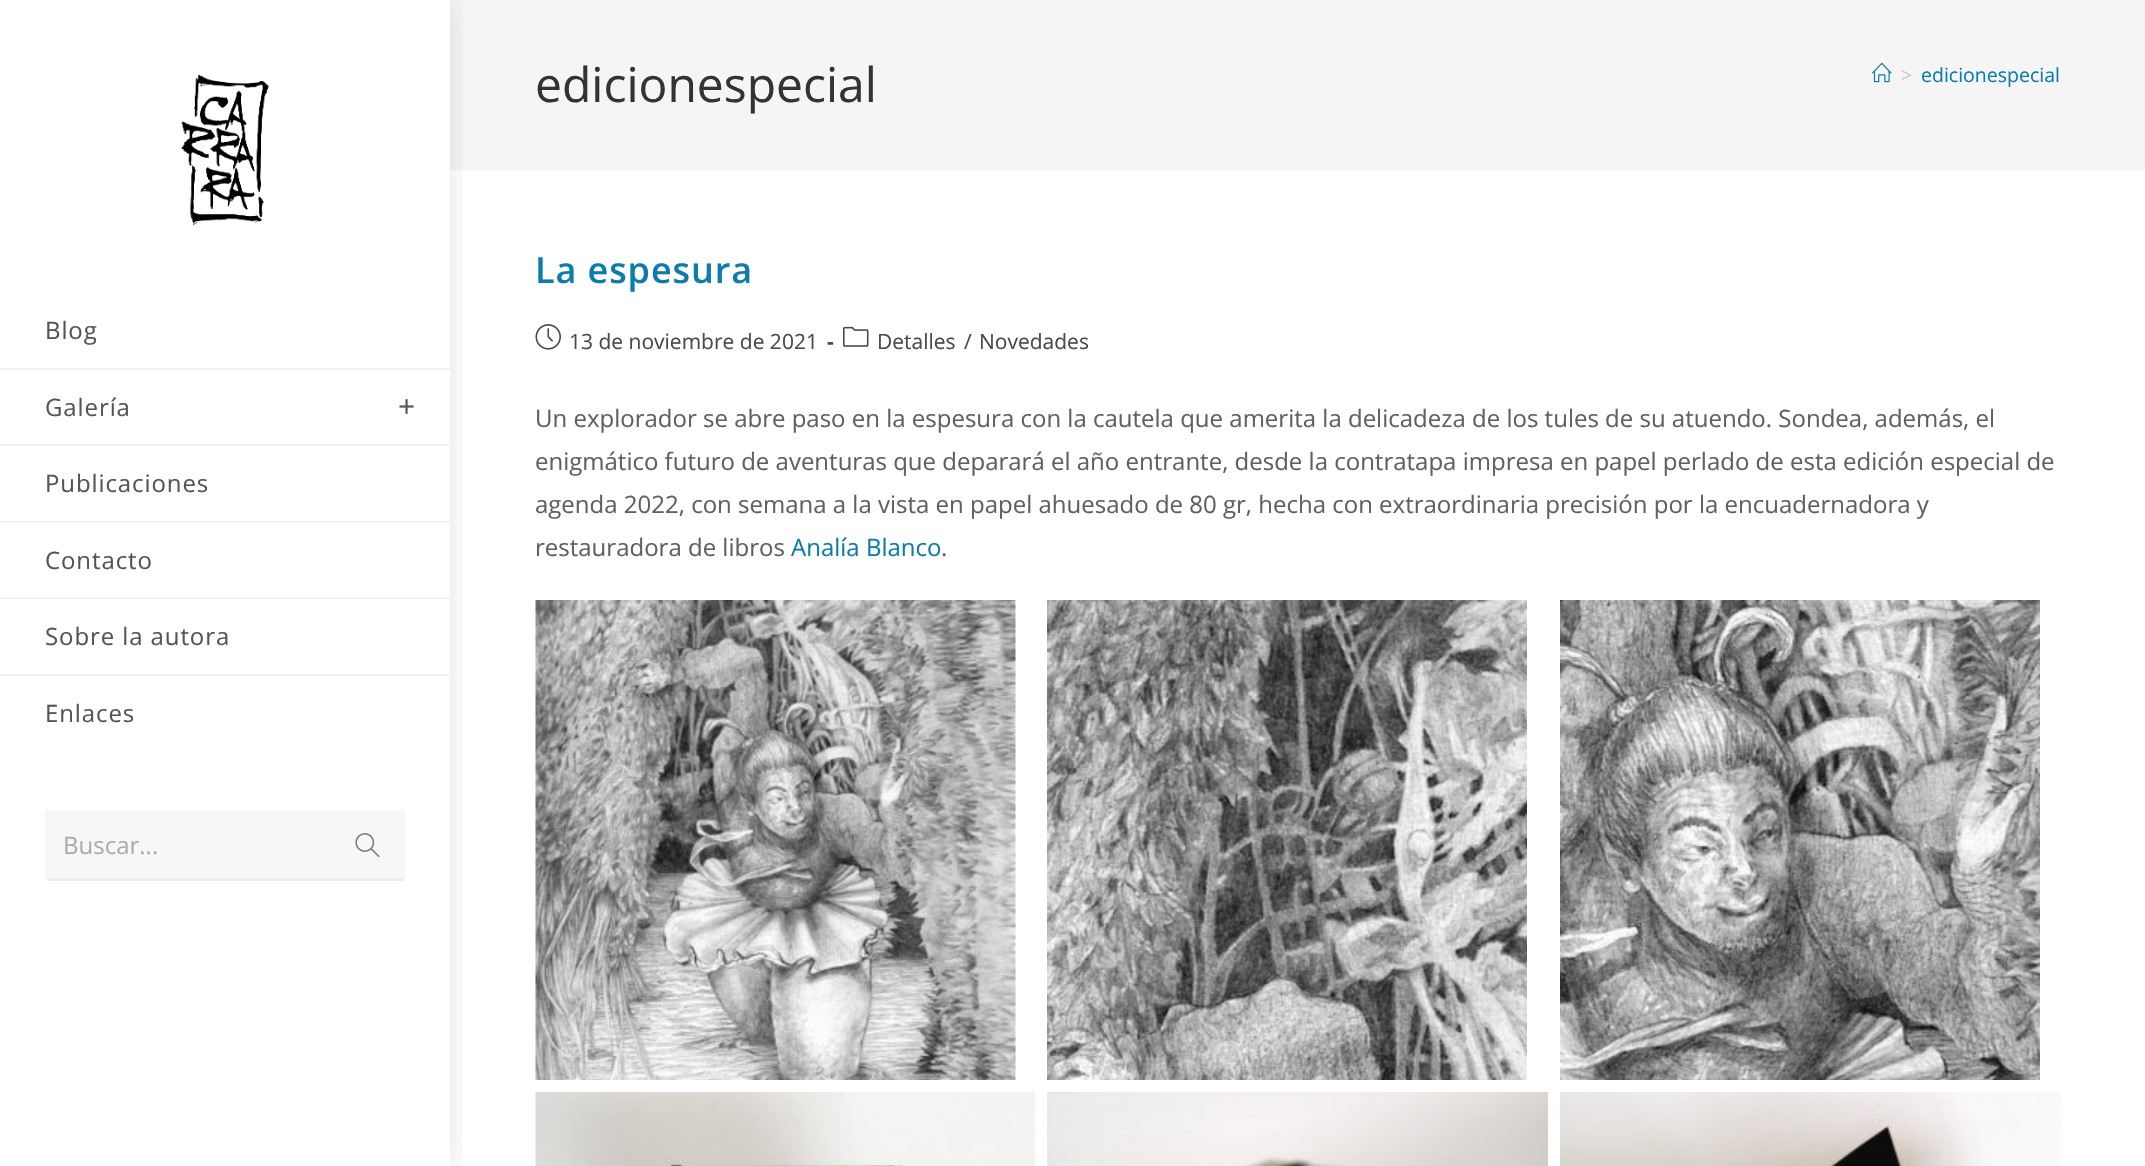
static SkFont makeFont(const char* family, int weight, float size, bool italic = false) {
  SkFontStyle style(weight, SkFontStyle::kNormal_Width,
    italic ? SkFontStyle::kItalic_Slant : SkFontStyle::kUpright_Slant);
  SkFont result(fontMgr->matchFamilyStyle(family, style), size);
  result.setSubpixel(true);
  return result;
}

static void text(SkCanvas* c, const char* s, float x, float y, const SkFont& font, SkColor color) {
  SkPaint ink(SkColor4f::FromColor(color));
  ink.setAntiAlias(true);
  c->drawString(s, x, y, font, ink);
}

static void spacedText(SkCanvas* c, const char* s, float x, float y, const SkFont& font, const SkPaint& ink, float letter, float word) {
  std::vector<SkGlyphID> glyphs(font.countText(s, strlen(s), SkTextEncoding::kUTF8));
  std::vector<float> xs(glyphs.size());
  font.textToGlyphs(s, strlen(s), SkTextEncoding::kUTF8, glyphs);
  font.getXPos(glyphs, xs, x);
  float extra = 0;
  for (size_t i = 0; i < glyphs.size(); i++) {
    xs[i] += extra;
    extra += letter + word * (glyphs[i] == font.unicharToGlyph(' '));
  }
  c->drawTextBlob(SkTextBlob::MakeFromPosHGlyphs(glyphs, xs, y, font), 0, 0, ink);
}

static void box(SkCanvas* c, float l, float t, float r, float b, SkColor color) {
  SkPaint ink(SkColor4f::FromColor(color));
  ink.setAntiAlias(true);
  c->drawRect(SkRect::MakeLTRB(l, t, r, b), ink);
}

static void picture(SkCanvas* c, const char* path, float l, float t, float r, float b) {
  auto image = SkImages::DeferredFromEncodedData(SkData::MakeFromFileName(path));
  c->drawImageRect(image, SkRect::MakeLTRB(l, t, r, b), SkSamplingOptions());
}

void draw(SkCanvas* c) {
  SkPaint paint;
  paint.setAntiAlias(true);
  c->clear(0xffffffff);
  box(c, 450, 0, 2145, 170, 0xfff5f5f5);
  c->save();
  c->clipRect(SkRect::MakeLTRB(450, 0, 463, 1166));
  paint.setColor(0x1a000000);
  paint.setMaskFilter(SkMaskFilter::MakeBlur(kNormal_SkBlurStyle, 15));
  c->drawRect(SkRect::MakeLTRB(0, 0, 450, 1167), paint);
  paint.setMaskFilter(nullptr);
  c->restore();
  picture(c, "img_01.png", 181, 75, 269, 225);
  box(c, 0, 368, 450, 370, 0xfff2f2f2);
  SkFont face1 = makeFont("Open Sans", 400, 24);
  paint.setColor(0xff555555);
  spacedText(c, "Blog", 45, 339, face1, paint, 0.9f, 0);
  box(c, 0, 444, 450, 446, 0xfff2f2f2);
  spacedText(c, "Galería", 45, 416, face1, paint, 0.9f, 0);
  SkFont face2 = makeFont("Open Sans", 400, 30);
  spacedText(c, "+", 398, 417, face2, paint, 0.9f, 0);
  box(c, 0, 521, 450, 523, 0xfff2f2f2);
  spacedText(c, "Publicaciones", 45, 492, face1, paint, 0.9f, 0);
  box(c, 0, 597, 450, 599, 0xfff2f2f2);
  spacedText(c, "Contacto", 45, 569, face1, paint, 0.9f, 0);
  box(c, 0, 674, 450, 676, 0xfff2f2f2);
  spacedText(c, "Sobre la autora", 45, 645, face1, paint, 0.9f, 0);
  spacedText(c, "Enlaces", 45, 722, face1, paint, 0.9f, 0);
  box(c, 45, 810, 405, 881, 0xfff7f7f7);
  text(c, "Buscar...", 63, 854, face1, 0xffacacac);
  picture(c, "img_02.png", 355, 833, 380, 857);
  box(c, 48, 878, 404, 881, 0xffededed);
  SkFont face3 = makeFont("Open Sans", 400, 48);
  text(c, "edicionespecial", 535, 102, face3, 0xff333333);
  picture(c, "img_03.png", 1872, 62, 1892, 83);
  SkFont face4 = makeFont("Open Sans", 400, 19.5f);
  text(c, ">", 1901, 82, face4, 0xffc6c6c6);
  text(c, "edicionespecial", 1921, 82, face4, 0xff0b7cac);
  SkFont face5 = makeFont("Open Sans", 600, 36);
  paint.setColor(0xff0b7cac);
  spacedText(c, "La espesura", 535, 283, face5, paint, 0.9f, 0);
  picture(c, "img_04.png", 535, 324, 561, 350);
  SkFont face6 = makeFont("Open Sans", 400, 21);
  text(c, "13 de noviembre de 2021", 569, 349, face6, 0xff4a4a4a);
  SkFont face7 = makeFont("Open Sans", 700, 21);
  text(c, "-", 827, 349, face7, 0xff4a4a4a);
  picture(c, "img_05.png", 843, 326, 869, 347);
  text(c, "Detalles", 877, 349, face6, 0xff4a4a4a);
  text(c, "/", 964, 349, face6, 0xff4a4a4a);
  text(c, "Novedades", 979, 349, face6, 0xff4a4a4a);
  text(c, "Un explorador se abre paso en la espesura con la cautela que amerita la delicadeza de los tules de su atuendo. Sondea, además, el", 535, 427, face1, 0xff606060);
  text(c, "enigmático futuro de aventuras que deparará el año entrante, desde la contratapa impresa en papel perlado de esta edición especial de", 535, 470, face1, 0xff606060);
  text(c, "agenda 2022, con semana a la vista en papel ahuesado de 80 gr, hecha con extraordinaria precisión por la encuadernadora y", 535, 513, face1, 0xff606060);
  text(c, "restauradora de libros", 535, 556, face1, 0xff606060);
  text(c, "Analía Blanco", 791, 556, face1, 0xff0b7cac);
  text(c, ".", 941, 556, face1, 0xff606060);
  picture(c, "img_06.png", 535, 600, 1016, 1080);
  picture(c, "img_07.png", 1047, 600, 1527, 1080);
  picture(c, "img_08.png", 1560, 600, 2040, 1080);
  picture(c, "img_09.png", 535, 1092, 1035, 1166);
  picture(c, "img_10.png", 1047, 1092, 1548, 1166);
  picture(c, "img_11.png", 1560, 1092, 2061, 1166);
}
